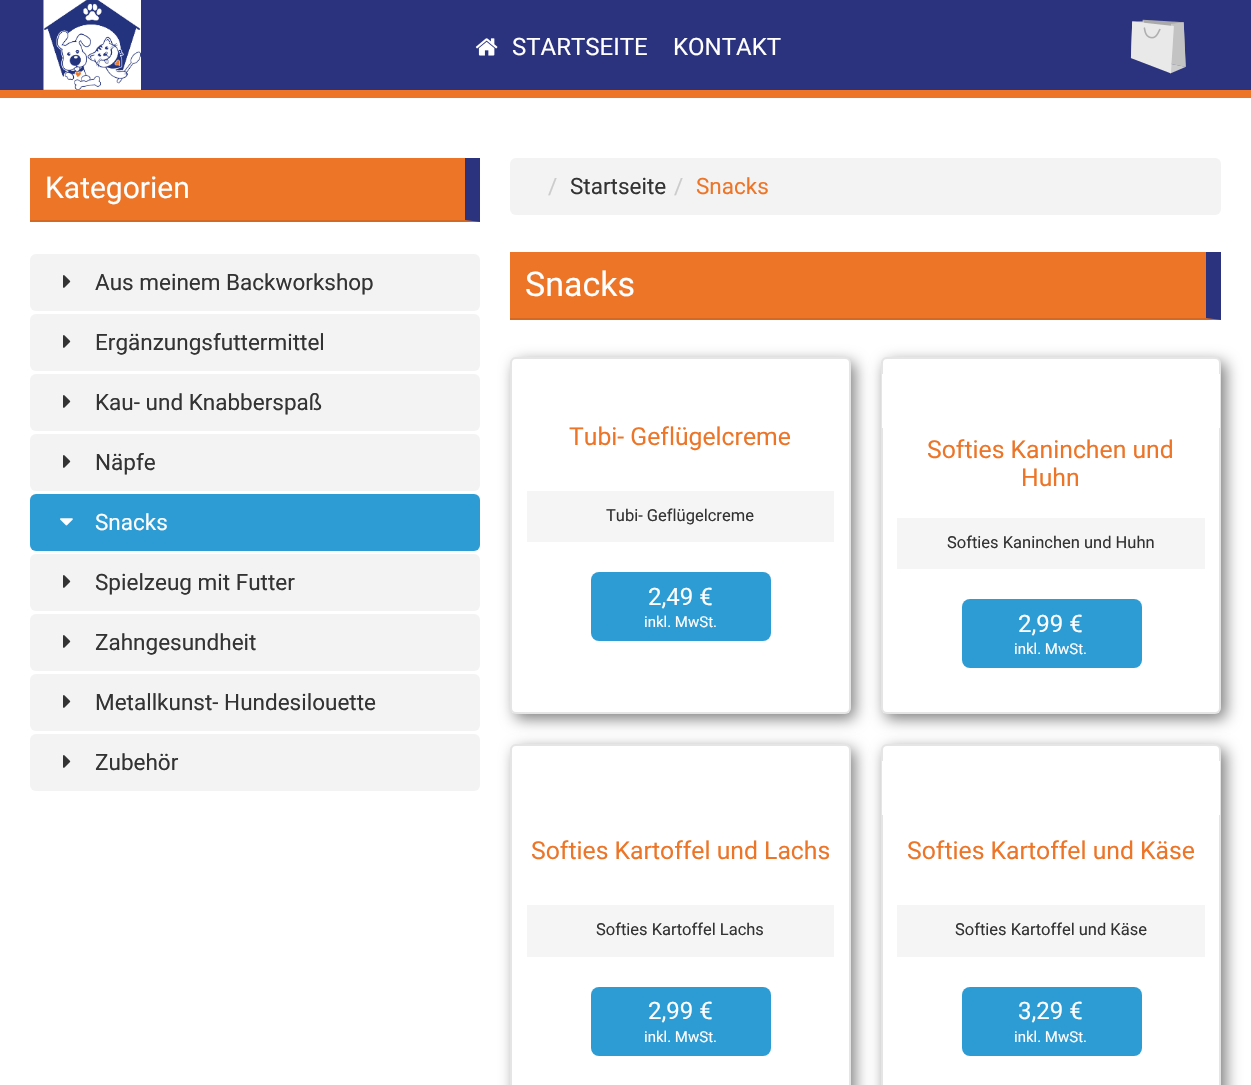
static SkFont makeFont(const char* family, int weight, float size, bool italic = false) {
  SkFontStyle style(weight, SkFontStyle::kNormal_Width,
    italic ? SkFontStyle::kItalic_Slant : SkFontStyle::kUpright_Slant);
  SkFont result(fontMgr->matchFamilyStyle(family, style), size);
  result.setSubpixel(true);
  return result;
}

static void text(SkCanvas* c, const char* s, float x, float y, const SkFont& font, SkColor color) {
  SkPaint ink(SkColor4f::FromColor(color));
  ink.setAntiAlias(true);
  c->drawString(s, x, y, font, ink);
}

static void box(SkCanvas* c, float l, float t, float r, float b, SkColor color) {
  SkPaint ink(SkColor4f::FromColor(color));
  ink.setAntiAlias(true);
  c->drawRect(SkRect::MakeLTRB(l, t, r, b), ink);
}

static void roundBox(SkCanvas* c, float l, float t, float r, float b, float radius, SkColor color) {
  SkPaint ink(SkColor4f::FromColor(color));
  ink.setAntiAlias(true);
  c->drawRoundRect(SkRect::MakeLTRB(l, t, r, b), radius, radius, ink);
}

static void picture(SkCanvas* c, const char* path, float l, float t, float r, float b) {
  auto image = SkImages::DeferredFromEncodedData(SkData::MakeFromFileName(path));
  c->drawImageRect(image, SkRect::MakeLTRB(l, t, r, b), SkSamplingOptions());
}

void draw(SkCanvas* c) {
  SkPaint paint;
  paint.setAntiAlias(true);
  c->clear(0xffffffff);
  box(c, 0, 0, 1251, 90, 0xff2b337f);
  box(c, 0, 90, 1251, 98, 0xffec7528);
  picture(c, "img_01.png", 43, 0, 141, 90);
  picture(c, "img_02.png", 475, 38, 498, 56);
  SkFont face1 = makeFont("Roboto", 400, 24);
  text(c, "STARTSEITE", 512, 55, face1, 0xffffffff);
  text(c, "KONTAKT", 673, 55, face1, 0xffffffff);
  picture(c, "img_03.png", 1130, 19, 1186, 74);
  box(c, 30, 158, 480, 222, 0xffec7528);
  paint.setColor(0xff2b337f);
  c->drawPath(SkPathBuilder().moveTo(480, 158).lineTo(480, 222).lineTo(465, 220).lineTo(465, 158).close().detach(), paint);
  paint.setColor(0x1a000000);
  c->drawPath(SkPathBuilder().moveTo(480, 222).lineTo(30, 222).lineTo(30, 220).lineTo(465, 220).close().detach(), paint);
  SkFont face2 = makeFont("Roboto", 400, 30);
  text(c, "Kategorien", 45, 198, face2, 0xffffffff);
  roundBox(c, 30, 254, 480, 311, 6, 0xfff3f3f3);
  picture(c, "img_04.png", 63, 275, 71, 288);
  SkFont face3 = makeFont("Roboto", 400, 22.5f);
  text(c, "Aus meinem Backworkshop", 95, 290, face3, 0xff333333);
  roundBox(c, 30, 314, 480, 371, 6, 0xfff3f3f3);
  picture(c, "img_04.png", 63, 335, 71, 348);
  text(c, "Ergänzungsfuttermittel", 95, 350, face3, 0xff333333);
  roundBox(c, 30, 374, 480, 431, 6, 0xfff3f3f3);
  picture(c, "img_04.png", 63, 395, 71, 408);
  text(c, "Kau- und Knabberspaß", 95, 410, face3, 0xff333333);
  roundBox(c, 30, 434, 480, 491, 6, 0xfff3f3f3);
  picture(c, "img_04.png", 63, 455, 71, 468);
  text(c, "Näpfe", 95, 470, face3, 0xff333333);
  roundBox(c, 30, 494, 480, 551, 6, 0xff2e9cd4);
  picture(c, "img_05.png", 60, 518, 73, 526);
  text(c, "Snacks", 95, 530, face3, 0xffffffff);
  roundBox(c, 30, 554, 480, 611, 6, 0xfff3f3f3);
  picture(c, "img_04.png", 63, 575, 71, 588);
  text(c, "Spielzeug mit Futter", 95, 590, face3, 0xff333333);
  roundBox(c, 30, 614, 480, 671, 6, 0xfff3f3f3);
  picture(c, "img_04.png", 63, 635, 71, 648);
  text(c, "Zahngesundheit", 95, 650, face3, 0xff333333);
  roundBox(c, 30, 674, 480, 731, 6, 0xfff3f3f3);
  picture(c, "img_04.png", 63, 695, 71, 708);
  text(c, "Metallkunst- Hundesilouette", 95, 710, face3, 0xff333333);
  roundBox(c, 30, 734, 480, 791, 6, 0xfff3f3f3);
  picture(c, "img_04.png", 63, 755, 71, 768);
  text(c, "Zubehör", 95, 770, face3, 0xff333333);
  roundBox(c, 510, 158, 1221, 215, 6, 0xfff3f3f3);
  text(c, "/", 548, 194, face3, 0xffcccccc);
  text(c, "Startseite", 570, 194, face3, 0xff333333);
  text(c, "/", 674, 194, face3, 0xffcccccc);
  text(c, "Snacks", 696, 194, face3, 0xffec7528);
  box(c, 510, 252, 1221, 320, 0xffec7528);
  paint.setColor(0xff2b337f);
  c->drawPath(SkPathBuilder().moveTo(1221, 252).lineTo(1221, 320).lineTo(1206, 318).lineTo(1206, 252).close().detach(), paint);
  paint.setColor(0x1a000000);
  c->drawPath(SkPathBuilder().moveTo(1221, 320).lineTo(510, 320).lineTo(510, 318).lineTo(1206, 318).close().detach(), paint);
  SkFont face4 = makeFont("Roboto", 400, 34);
  text(c, "Snacks", 525, 296, face4, 0xffffffff);
  paint.setColor(0x80000000);
  paint.setMaskFilter(SkMaskFilter::MakeBlur(kNormal_SkBlurStyle, 7.5f));
  c->drawRoundRect(SkRect::MakeLTRB(515, 362, 855, 719), 6, 6, paint);
  paint.setMaskFilter(nullptr);
  roundBox(c, 510, 357, 851, 714, 6, 0xffffffff);
  paint.setStyle(SkPaint::kStroke_Style);
  paint.setStrokeWidth(2);
  paint.setColor(0x1a000000);
  c->drawRoundRect(SkRect::MakeLTRB(511, 358, 850, 713), 5, 5, paint);
  SkFont face5 = makeFont("Roboto", 400, 24.75f);
  text(c, "Tubi- Geflügelcreme", 569, 445, face5, 0xffec7528);
  box(c, 527, 491, 834, 542, 0xfff5f5f5);
  SkFont face6 = makeFont("Roboto", 400, 16.5f);
  text(c, "Tubi- Geflügelcreme", 606, 521, face6, 0xff333333);
  roundBox(c, 591, 572, 771, 641, 8, 0xff2e9cd4);
  text(c, "2,49 €", 648, 605, face1, 0xffffffff);
  SkFont face7 = makeFont("Roboto", 400, 15);
  text(c, "inkl. MwSt.", 644, 627, face7, 0xffffffff);
  paint.setStyle(SkPaint::kFill_Style);
  paint.setColor(0x80000000);
  paint.setMaskFilter(SkMaskFilter::MakeBlur(kNormal_SkBlurStyle, 7.5f));
  c->drawRoundRect(SkRect::MakeLTRB(885, 362, 1226, 719), 6, 6, paint);
  paint.setMaskFilter(nullptr);
  roundBox(c, 881, 357, 1221, 714, 6, 0xffffffff);
  paint.setStyle(SkPaint::kStroke_Style);
  paint.setColor(0x1a000000);
  c->drawRoundRect(SkRect::MakeLTRB(882, 358, 1220, 713), 5, 5, paint);
  box(c, 882, 374, 1220, 428, 0xffffffff);
  text(c, "Softies Kaninchen und", 927, 458, face5, 0xffec7528);
  text(c, "Huhn", 1021, 486, face5, 0xffec7528);
  box(c, 897, 518, 1205, 569, 0xfff5f5f5);
  text(c, "Softies Kaninchen und Huhn", 947, 548, face6, 0xff333333);
  roundBox(c, 962, 599, 1142, 668, 8, 0xff2e9cd4);
  text(c, "2,99 €", 1018, 632, face1, 0xffffffff);
  text(c, "inkl. MwSt.", 1014, 654, face7, 0xffffffff);
  paint.setStyle(SkPaint::kFill_Style);
  paint.setColor(0x80000000);
  paint.setMaskFilter(SkMaskFilter::MakeBlur(kNormal_SkBlurStyle, 7.5f));
  c->drawRoundRect(SkRect::MakeLTRB(515, 749, 855, 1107), 6, 6, paint);
  paint.setMaskFilter(nullptr);
  roundBox(c, 510, 744, 851, 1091, 6, 0xffffffff);
  paint.setStyle(SkPaint::kStroke_Style);
  paint.setColor(0x1a000000);
  c->drawRoundRect(SkRect::MakeLTRB(511, 745, 850, 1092), 5, 5, paint);
  text(c, "Softies Kartoffel und Lachs", 531, 859, face5, 0xffec7528);
  box(c, 527, 905, 834, 957, 0xfff5f5f5);
  text(c, "Softies Kartoffel Lachs", 596, 935, face6, 0xff333333);
  roundBox(c, 591, 987, 771, 1056, 8, 0xff2e9cd4);
  text(c, "2,99 €", 648, 1019, face1, 0xffffffff);
  text(c, "inkl. MwSt.", 644, 1042, face7, 0xffffffff);
  paint.setStyle(SkPaint::kFill_Style);
  paint.setColor(0x80000000);
  paint.setMaskFilter(SkMaskFilter::MakeBlur(kNormal_SkBlurStyle, 7.5f));
  c->drawRoundRect(SkRect::MakeLTRB(885, 749, 1226, 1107), 6, 6, paint);
  paint.setMaskFilter(nullptr);
  paint.setColor(0xffffffff);
  c->drawRoundRect(SkRect::MakeLTRB(882, 745, 1220, 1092), 5, 5, paint);
  paint.setStyle(SkPaint::kStroke_Style);
  paint.setColor(0xffe5e5e5);
  c->drawRoundRect(SkRect::MakeLTRB(882, 745, 1220, 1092), 5, 5, paint);
  box(c, 882, 761, 1220, 815, 0xffffffff);
  text(c, "Softies Kartoffel und Käse", 907, 859, face5, 0xffec7528);
  box(c, 897, 905, 1205, 957, 0xfff5f5f5);
  text(c, "Softies Kartoffel und Käse", 955, 935, face6, 0xff333333);
  roundBox(c, 962, 987, 1142, 1056, 8, 0xff2e9cd4);
  text(c, "3,29 €", 1018, 1019, face1, 0xffffffff);
  text(c, "inkl. MwSt.", 1014, 1042, face7, 0xffffffff);
}
